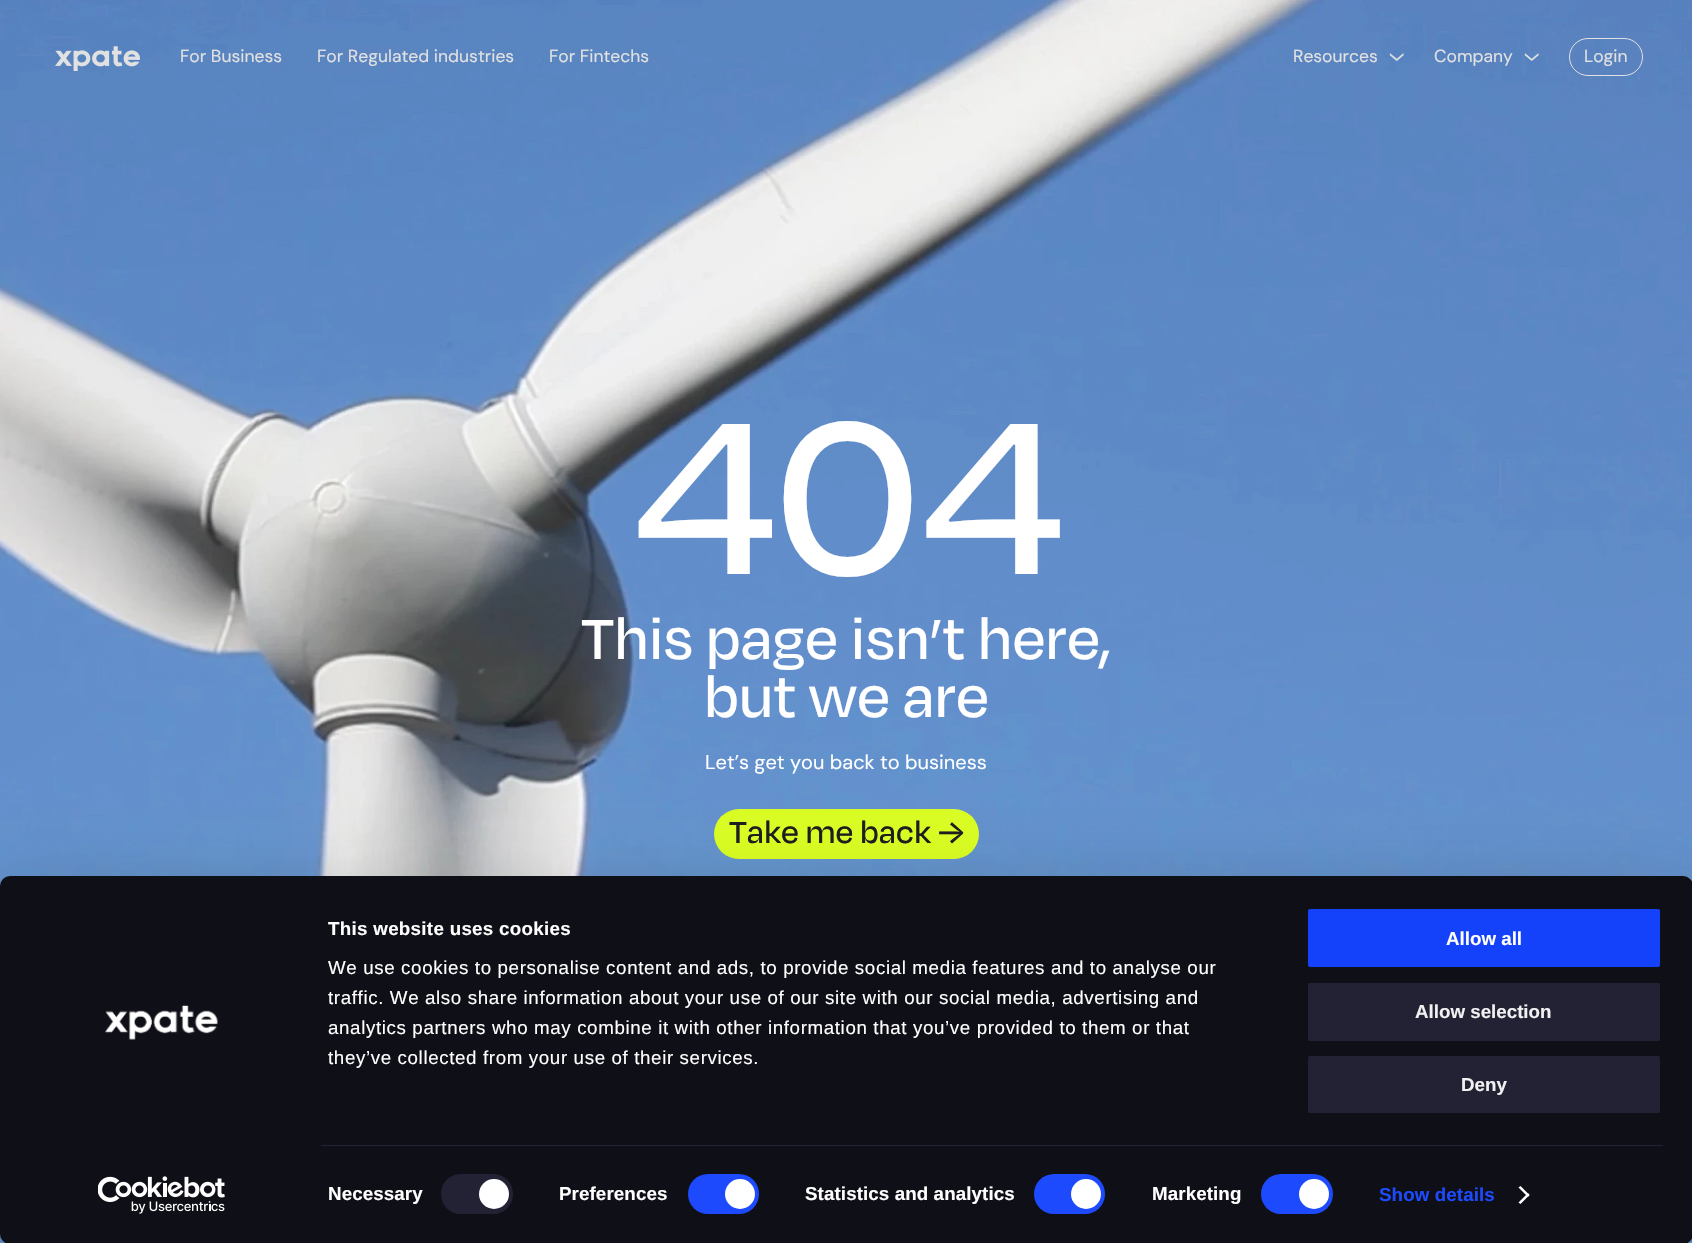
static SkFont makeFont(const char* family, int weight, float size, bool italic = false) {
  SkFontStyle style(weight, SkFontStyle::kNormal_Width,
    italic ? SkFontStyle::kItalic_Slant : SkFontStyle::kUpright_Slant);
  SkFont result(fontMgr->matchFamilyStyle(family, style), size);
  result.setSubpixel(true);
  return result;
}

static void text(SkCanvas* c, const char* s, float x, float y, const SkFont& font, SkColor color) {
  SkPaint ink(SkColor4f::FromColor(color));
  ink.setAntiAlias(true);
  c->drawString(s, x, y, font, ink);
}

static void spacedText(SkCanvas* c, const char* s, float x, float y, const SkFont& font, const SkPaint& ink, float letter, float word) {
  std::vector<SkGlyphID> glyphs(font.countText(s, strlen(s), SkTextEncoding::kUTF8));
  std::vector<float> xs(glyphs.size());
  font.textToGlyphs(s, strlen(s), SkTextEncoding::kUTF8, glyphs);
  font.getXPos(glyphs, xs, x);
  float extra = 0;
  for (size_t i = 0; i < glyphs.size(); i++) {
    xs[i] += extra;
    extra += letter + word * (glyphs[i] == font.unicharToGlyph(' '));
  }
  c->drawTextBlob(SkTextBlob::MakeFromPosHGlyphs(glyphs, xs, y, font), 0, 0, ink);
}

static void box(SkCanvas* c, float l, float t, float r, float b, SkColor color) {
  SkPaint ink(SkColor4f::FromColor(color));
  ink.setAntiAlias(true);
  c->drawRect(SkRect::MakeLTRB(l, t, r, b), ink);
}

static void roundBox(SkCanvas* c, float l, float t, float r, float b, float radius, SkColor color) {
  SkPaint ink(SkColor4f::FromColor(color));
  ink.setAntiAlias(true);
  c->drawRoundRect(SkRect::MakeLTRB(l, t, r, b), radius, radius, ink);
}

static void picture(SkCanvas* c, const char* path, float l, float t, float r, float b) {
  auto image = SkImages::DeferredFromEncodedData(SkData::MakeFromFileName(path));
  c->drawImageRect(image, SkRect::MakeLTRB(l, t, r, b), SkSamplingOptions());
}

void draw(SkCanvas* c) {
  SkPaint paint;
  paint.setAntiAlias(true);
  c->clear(0xffffffff);
  picture(c, "img_04.png", 0, 0, 1692, 1243);
  picture(c, "img_01.png", 55, 46, 140, 71);
  SkFont face1 = makeFont("DM Sans", 400, 17.5f);
  text(c, "For Business", 180, 62, face1, 0xffe1e1e1);
  text(c, "For Regulated industries", 317, 62, face1, 0xffe1e1e1);
  text(c, "For Fintechs", 549, 62, face1, 0xffe1e1e1);
  text(c, "Resources", 1293, 62, face1, 0xffe1e1e1);
  picture(c, "img_02.png", 1389, 53, 1404, 61);
  text(c, "Company", 1434, 62, face1, 0xffe1e1e1);
  picture(c, "img_03.png", 1524, 53, 1539, 61);
  paint.setStyle(SkPaint::kStroke_Style);
  paint.setStrokeWidth(1);
  paint.setColor(0xffe1e1e1);
  c->drawRoundRect(SkRect::MakeLTRB(1569.5f, 38.5f, 1642.5f, 75.5f), 18.5f, 18.5f, paint);
  text(c, "Login", 1584, 62, face1, 0xffe1e1e1);
  SkFont face2 = makeFont("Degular", 500, 250);
  text(c, "404", 630, 574, face2, 0xffffffff);
  SkFont face3 = makeFont("Degular", 500, 65);
  text(c, "This page isn’t here,", 581, 659, face3, 0xffffffff);
  text(c, "but we are", 704, 717, face3, 0xffffffff);
  SkFont face4 = makeFont("DM Sans", 400, 20);
  text(c, "Let’s get you back to business", 705, 769, face4, 0xffffffff);
  roundBox(c, 714, 809, 979, 859, 25, 0xffdafe24);
  SkFont face5 = makeFont("Degular", 500, 35);
  text(c, "Take me back →", 729, 843, face5, 0xff1e1e1e);
  paint.setStyle(SkPaint::kFill_Style);
  paint.setColor(0x4d000000);
  paint.setMaskFilter(SkMaskFilter::MakeBlur(kNormal_SkBlurStyle, 44));
  c->drawRoundRect(SkRect::MakeLTRB(0, 914, 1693, 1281), 10, 10, paint);
  paint.setMaskFilter(nullptr);
  roundBox(c, 0, 876, 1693, 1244, 10, 0xff0f0f17);
  SkFont face6 = makeFont("Liberation Sans", 700, 18.75f);
  paint.setColor(0xffffffff);
  spacedText(c, "This website uses cookies", 328, 935, face6, paint, 0.3f, 0);
  SkFont face7 = makeFont("Liberation Sans", 400, 18.75f);
  spacedText(c, "We use cookies to personalise content and ads, to provide social media features and to analyse our", 328, 974, face7, paint, 0.62f, 0);
  spacedText(c, "traffic. We also share information about your use of our site with our social media, advertising and", 328, 1004, face7, paint, 0.62f, 0);
  spacedText(c, "analytics partners who may combine it with other information that you’ve provided to them or that", 328, 1034, face7, paint, 0.62f, 0);
  spacedText(c, "they’ve collected from your use of their services.", 328, 1064, face7, paint, 0.62f, 0);
  box(c, 321, 1145, 1663, 1146, 0xff222234);
  spacedText(c, "Necessary", 328, 1200, face6, paint, 0.1f, 0);
  roundBox(c, 441, 1174, 513, 1214, 20, 0xff222234);
  c->drawCircle(494, 1194, 15, paint);
  spacedText(c, "Preferences", 559, 1200, face6, paint, 0.1f, 0);
  roundBox(c, 688, 1174, 759, 1214, 20, 0xff1d4afd);
  c->drawCircle(740, 1194, 15, paint);
  spacedText(c, "Statistics and analytics", 805, 1200, face6, paint, 0.1f, 0);
  roundBox(c, 1034, 1174, 1105, 1214, 20, 0xff1d4afd);
  c->drawCircle(1086, 1194, 15, paint);
  spacedText(c, "Marketing", 1152, 1200, face6, paint, 0.1f, 0);
  roundBox(c, 1261, 1174, 1333, 1214, 20, 0xff1d4afd);
  c->drawCircle(1314, 1194, 15, paint);
  paint.setColor(0xff1d4afd);
  spacedText(c, "Show details", 1379, 1201, face6, paint, 0.1f, 0);
  paint.setColor(0xffffffff);
  c->drawPath(SkPathBuilder().moveTo(1520.5f, 1186).lineTo(1529.5f, 1195).lineTo(1528, 1197).lineTo(1518.5f, 1187.5f).close().detach(), paint);
  c->drawPath(SkPathBuilder().moveTo(1528, 1193).lineTo(1529.5f, 1195).lineTo(1520.5f, 1204).lineTo(1518.5f, 1202.5f).close().detach(), paint);
  picture(c, "img_05.png", 105, 1005, 218, 1040);
  picture(c, "img_06.png", 98, 1176, 225, 1214);
  paint.setColor(0xff1442fa);
  c->drawRoundRect(SkRect::MakeLTRB(1306.5f, 907.5f, 1661.5f, 968.5f), 3.5f, 3.5f, paint);
  paint.setStyle(SkPaint::kStroke_Style);
  paint.setStrokeWidth(3);
  paint.setColor(0xff0f0f17);
  c->drawRoundRect(SkRect::MakeLTRB(1306.5f, 907.5f, 1661.5f, 968.5f), 3.5f, 3.5f, paint);
  text(c, "Allow all", 1446, 945, face6, 0xffffffff);
  paint.setStyle(SkPaint::kFill_Style);
  paint.setColor(0xff222234);
  c->drawRoundRect(SkRect::MakeLTRB(1306.5f, 981.5f, 1661.5f, 1042.5f), 3.5f, 3.5f, paint);
  paint.setStyle(SkPaint::kStroke_Style);
  paint.setColor(0xff0f0f17);
  c->drawRoundRect(SkRect::MakeLTRB(1306.5f, 981.5f, 1661.5f, 1042.5f), 3.5f, 3.5f, paint);
  text(c, "Allow selection", 1415, 1018, face6, 0xfff1f1f1);
  paint.setStyle(SkPaint::kFill_Style);
  paint.setColor(0xff222234);
  c->drawRoundRect(SkRect::MakeLTRB(1306.5f, 1054.5f, 1661.5f, 1114.5f), 3.5f, 3.5f, paint);
  paint.setStyle(SkPaint::kStroke_Style);
  paint.setColor(0xff0f0f17);
  c->drawRoundRect(SkRect::MakeLTRB(1306.5f, 1054.5f, 1661.5f, 1114.5f), 3.5f, 3.5f, paint);
  text(c, "Deny", 1461, 1091, face6, 0xfff1f1f1);
}
